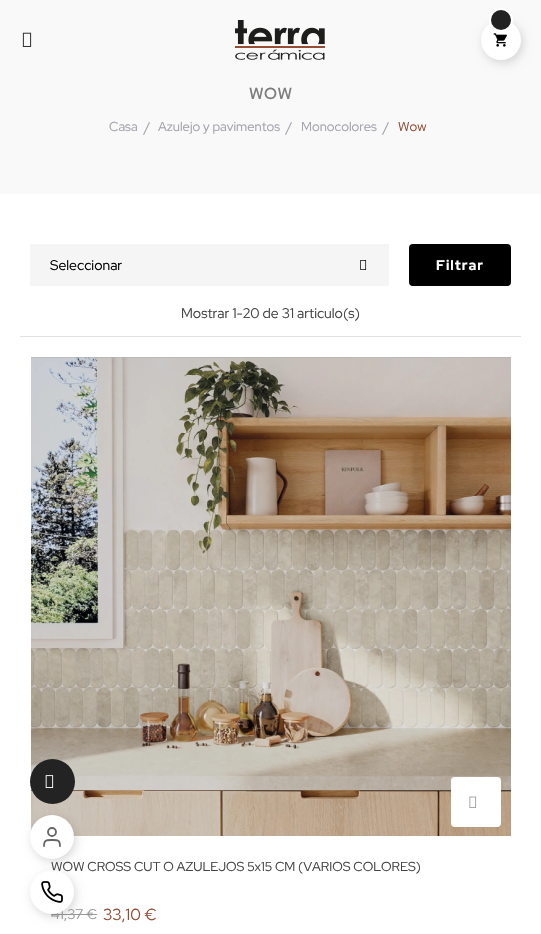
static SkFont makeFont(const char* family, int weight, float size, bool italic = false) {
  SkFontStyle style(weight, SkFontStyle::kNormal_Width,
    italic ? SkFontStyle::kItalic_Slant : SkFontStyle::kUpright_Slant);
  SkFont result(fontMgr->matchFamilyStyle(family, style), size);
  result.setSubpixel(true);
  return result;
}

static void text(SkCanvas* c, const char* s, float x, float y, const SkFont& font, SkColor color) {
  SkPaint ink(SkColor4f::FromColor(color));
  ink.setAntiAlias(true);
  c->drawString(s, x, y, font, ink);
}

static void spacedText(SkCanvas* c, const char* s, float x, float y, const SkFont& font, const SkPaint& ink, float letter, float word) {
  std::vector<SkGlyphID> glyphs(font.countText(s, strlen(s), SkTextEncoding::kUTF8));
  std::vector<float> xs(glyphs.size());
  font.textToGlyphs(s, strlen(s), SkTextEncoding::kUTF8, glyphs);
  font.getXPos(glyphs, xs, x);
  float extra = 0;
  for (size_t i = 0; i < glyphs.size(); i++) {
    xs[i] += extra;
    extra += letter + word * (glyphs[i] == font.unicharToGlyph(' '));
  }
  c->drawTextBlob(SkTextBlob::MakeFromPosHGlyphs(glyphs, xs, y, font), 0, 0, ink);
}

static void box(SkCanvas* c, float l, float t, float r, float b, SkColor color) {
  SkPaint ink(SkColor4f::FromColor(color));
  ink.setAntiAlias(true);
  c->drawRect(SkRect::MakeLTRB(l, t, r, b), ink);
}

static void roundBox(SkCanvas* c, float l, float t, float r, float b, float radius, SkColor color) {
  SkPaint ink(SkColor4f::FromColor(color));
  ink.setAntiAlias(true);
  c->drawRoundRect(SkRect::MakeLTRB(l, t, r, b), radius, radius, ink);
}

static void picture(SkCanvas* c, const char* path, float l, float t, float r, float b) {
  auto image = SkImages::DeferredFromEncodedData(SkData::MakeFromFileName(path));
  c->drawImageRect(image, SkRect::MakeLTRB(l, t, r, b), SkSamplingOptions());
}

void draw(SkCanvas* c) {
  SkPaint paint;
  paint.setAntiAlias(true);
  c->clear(0xffffffff);
  box(c, 0, 0, 541, 194, 0xfff9f9f9);
  paint.setColor(0x26000000);
  paint.setMaskFilter(SkMaskFilter::MakeBlur(kNormal_SkBlurStyle, 5));
  c->drawRoundRect(SkRect::MakeLTRB(483, 23, 523, 63), 20, 20, paint);
  paint.setMaskFilter(nullptr);
  paint.setColor(0xffffffff);
  c->drawCircle(501, 40, 20, paint);
  picture(c, "img_01.png", 493, 33, 507, 47);
  paint.setStyle(SkPaint::kStroke_Style);
  paint.setStrokeWidth(2);
  c->drawCircle(501, 20, 11, paint);
  paint.setStyle(SkPaint::kFill_Style);
  paint.setColor(0xff222222);
  c->drawCircle(501, 20, 10, paint);
  box(c, 51, 914, 97, 915, 0xff999999);
  paint.setColor(0x26000000);
  paint.setMaskFilter(SkMaskFilter::MakeBlur(kNormal_SkBlurStyle, 5));
  c->drawRoundRect(SkRect::MakeLTRB(32, 873, 76, 917), 22, 22, paint);
  paint.setMaskFilter(nullptr);
  SkFont face1 = makeFont("Red Hat Display", 400, 13);
  text(c, "WOW CROSS CUT O AZULEJOS 5x15 CM (VARIOS COLORES)", 51, 871, face1, 0xff444444);
  SkFont face2 = makeFont("Red Hat Display", 400, 14);
  text(c, "41,37 €", 51, 919, face2, 0xff999999);
  paint.setColor(0xffffffff);
  c->drawCircle(52, 892, 22, paint);
  picture(c, "img_07.png", 31, 357, 511, 836);
  paint.setColor(0x26000000);
  paint.setMaskFilter(SkMaskFilter::MakeBlur(kNormal_SkBlurStyle, 5));
  c->drawRoundRect(SkRect::MakeLTRB(32, 818, 76, 862), 22, 22, paint);
  paint.setMaskFilter(nullptr);
  paint.setColor(0xff232323);
  c->drawCircle(52.5f, 781.5f, 22.5f, paint);
  picture(c, "img_02.png", 45, 775, 54, 788);
  paint.setColor(0xffffffff);
  c->drawCircle(52, 837, 22, paint);
  paint.setStyle(SkPaint::kStroke_Style);
  paint.setStrokeWidth(1.8f);
  paint.setStrokeCap(SkPaint::kRound_Cap);
  paint.setStrokeJoin(SkPaint::kRound_Join);
  paint.setColor(0xff666666);
  c->drawPath(SkPathBuilder().moveTo(60, 846).cubicTo(60, 839.5f, 57.5f, 840, 52, 840).cubicTo(46.5f, 840, 44, 839.5f, 44, 846).detach(), paint);
  paint.setStrokeCap(SkPaint::kButt_Cap);
  paint.setStrokeJoin(SkPaint::kMiter_Join);
  c->drawCircle(52, 832, 4, paint);
  picture(c, "img_03.png", 22, 32, 32, 47);
  picture(c, "img_04.png", 41, 881, 63, 903);
  picture(c, "img_05.png", 235, 20, 325, 60);
  SkFont face3 = makeFont("Red Hat Display", 500, 16);
  paint.setStyle(SkPaint::kFill_Style);
  paint.setColor(0xff7d7d7d);
  spacedText(c, "WOW", 249, 99, face3, paint, 0.5f, 0);
  text(c, "Casa", 109, 131, face1, 0xffa3a2ac);
  text(c, "/", 144, 132, face2, 0xffa3a2ac);
  text(c, "Azulejo y pavimentos", 158, 131, face1, 0xffa3a2ac);
  text(c, "/", 286, 132, face2, 0xffa3a2ac);
  text(c, "Monocolores", 301, 131, face1, 0xffa3a2ac);
  text(c, "/", 383, 132, face2, 0xffa3a2ac);
  text(c, "Wow", 398, 131, face1, 0xff944c33);
  box(c, 20, 336, 521, 337, 0xffe1e1e1);
  box(c, 30, 244, 389, 286, 0xfff5f5f5);
  text(c, "Seleccionar", 50, 270, face2, 0xff000000);
  picture(c, "img_06.png", 360, 260, 367, 270);
  roundBox(c, 409, 244, 511, 286, 4, 0xff000000);
  SkFont face4 = makeFont("Red Hat Display", 700, 14);
  paint.setColor(0xffffffff);
  spacedText(c, "Filtrar", 436, 270, face4, paint, 1, 0);
  text(c, "Mostrar 1-20 de 31 articulo(s)", 181, 318, face2, 0xff444444);
  roundBox(c, 451, 777, 501, 827, 4, 0xffffffff);
  picture(c, "img_08.png", 469, 796, 477, 808);
  SkFont face5 = makeFont("Red Hat Display", 400, 16);
  text(c, "33,10 €", 103, 920, face5, 0xff944c33);
}
